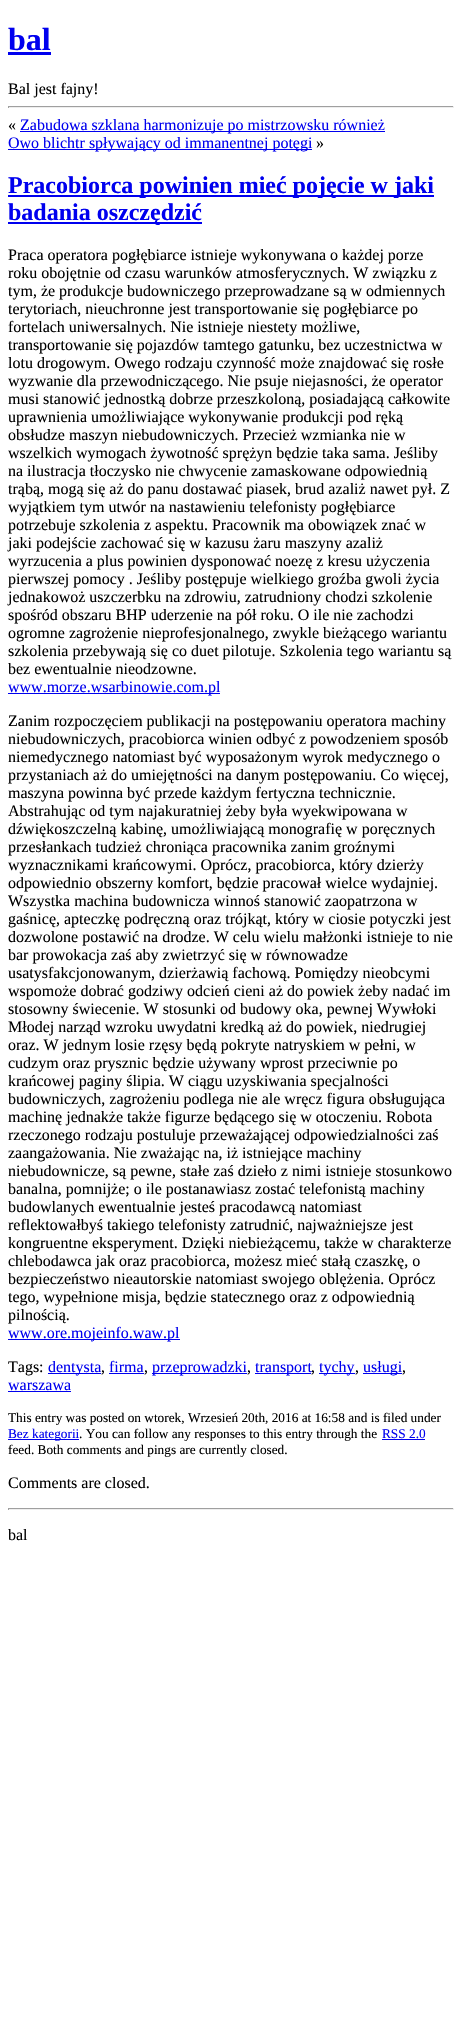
static SkFont makeFont(const char* family, int weight, float size, bool italic = false) {
  SkFontStyle style(weight, SkFontStyle::kNormal_Width,
    italic ? SkFontStyle::kItalic_Slant : SkFontStyle::kUpright_Slant);
  SkFont result(fontMgr->matchFamilyStyle(family, style), size);
  result.setSubpixel(true);
  return result;
}

static void text(SkCanvas* c, const char* s, float x, float y, const SkFont& font, SkColor color) {
  SkPaint ink(SkColor4f::FromColor(color));
  ink.setAntiAlias(true);
  c->drawString(s, x, y, font, ink);
}

static void box(SkCanvas* c, float l, float t, float r, float b, SkColor color) {
  SkPaint ink(SkColor4f::FromColor(color));
  ink.setAntiAlias(true);
  c->drawRect(SkRect::MakeLTRB(l, t, r, b), ink);
}

void draw(SkCanvas* c) {
  SkPaint paint;
  paint.setAntiAlias(true);
  c->clear(0xffffffff);
  SkFont face1 = makeFont("Liberation Serif", 700, 32);
  text(c, "bal", 8, 50, face1, 0xff0000ee);
  box(c, 8, 52, 51, 55, 0xff0000ee);
  SkFont face2 = makeFont("Liberation Serif", 400, 16);
  text(c, "Bal jest fajny!", 8, 94, face2, 0xff000000);
  box(c, 8, 106, 454, 107, 0xff9f9f9f);
  box(c, 453, 106, 454, 108, 0xffeeeeee);
  box(c, 8, 107, 454, 108, 0xffeeeeee);
  box(c, 8, 106, 9, 108, 0xff9f9f9f);
  text(c, "«", 8, 130, face2, 0xff000000);
  box(c, 20, 131, 385, 132, 0xff0000ee);
  text(c, "Zabudowa szklana harmonizuje po mistrzowsku również", 20, 130, face2, 0xff0000ee);
  box(c, 8, 149, 312, 150, 0xff0000ee);
  text(c, "Owo blichtr spływający od immanentnej potęgi", 8, 148, face2, 0xff0000ee);
  text(c, "»", 316, 148, face2, 0xff000000);
  box(c, 8, 195, 434, 197, 0xff0000ee);
  SkFont face3 = makeFont("Liberation Serif", 700, 24);
  text(c, "Pracobiorca powinien mieć pojęcie w jaki", 8, 193, face3, 0xff0000ee);
  box(c, 8, 222, 202, 224, 0xff0000ee);
  text(c, "badania oszczędzić", 8, 220, face3, 0xff0000ee);
  text(c, "Praca operatora pogłębiarce istnieje wykonywana o każdej porze", 8, 260, face2, 0xff000000);
  text(c, "roku obojętnie od czasu warunków atmosferycznych. W związku z", 8, 278, face2, 0xff000000);
  text(c, "tym, że produkcje budowniczego przeprowadzane są w odmiennych", 8, 296, face2, 0xff000000);
  text(c, "terytoriach, nieuchronne jest transportowanie się pogłębiarce po", 8, 314, face2, 0xff000000);
  text(c, "fortelach uniwersalnych. Nie istnieje niestety możliwe,", 8, 332, face2, 0xff000000);
  text(c, "transportowanie się pojazdów tamtego gatunku, bez uczestnictwa w", 8, 350, face2, 0xff000000);
  text(c, "lotu drogowym. Owego rodzaju czynność może znajdować się rosłe", 8, 368, face2, 0xff000000);
  text(c, "wyzwanie dla przewodniczącego. Nie psuje niejasności, że operator", 8, 386, face2, 0xff000000);
  text(c, "musi stanowić jednostką dobrze przeszkoloną, posiadającą całkowite", 8, 404, face2, 0xff000000);
  text(c, "uprawnienia umożliwiające wykonywanie produkcji pod ręką", 8, 422, face2, 0xff000000);
  text(c, "obsłudze maszyn niebudowniczych. Przecież wzmianka nie w", 8, 440, face2, 0xff000000);
  text(c, "wszelkich wymogach żywotność sprężyn będzie taka sama. Jeśliby", 8, 458, face2, 0xff000000);
  text(c, "na ilustracja tłoczysko nie chwycenie zamaskowane odpowiednią", 8, 476, face2, 0xff000000);
  text(c, "trąbą, mogą się aż do panu dostawać piasek, brud azaliż nawet pył. Z", 8, 494, face2, 0xff000000);
  text(c, "wyjątkiem tym utwór na nastawieniu telefonisty pogłębiarce", 8, 512, face2, 0xff000000);
  text(c, "potrzebuje szkolenia z aspektu. Pracownik ma obowiązek znać w", 8, 530, face2, 0xff000000);
  text(c, "jaki podejście zachować się w kazusu żaru maszyny azaliż", 8, 548, face2, 0xff000000);
  text(c, "wyrzucenia a plus powinien dysponować noezę z kresu użyczenia", 8, 566, face2, 0xff000000);
  text(c, "pierwszej pomocy . Jeśliby postępuje wielkiego groźba gwoli życia", 8, 584, face2, 0xff000000);
  text(c, "jednakowoż uszczerbku na zdrowiu, zatrudniony chodzi szkolenie", 8, 602, face2, 0xff000000);
  text(c, "spośród obszaru BHP uderzenie na pół roku. O ile nie zachodzi", 8, 620, face2, 0xff000000);
  text(c, "ogromne zagrożenie nieprofesjonalnego, zwykle bieżącego wariantu", 8, 638, face2, 0xff000000);
  text(c, "szkolenia przebywają się co duet pilotuje. Szkolenia tego wariantu są", 8, 656, face2, 0xff000000);
  text(c, "bez ewentualnie nieodzowne.", 8, 674, face2, 0xff000000);
  box(c, 8, 693, 220, 694, 0xff0000ee);
  text(c, "www.morze.wsarbinowie.com.pl", 8, 692, face2, 0xff0000ee);
  text(c, "Zanim rozpoczęciem publikacji na postępowaniu operatora machiny", 8, 726, face2, 0xff000000);
  text(c, "niebudowniczych, pracobiorca winien odbyć z powodzeniem sposób", 8, 744, face2, 0xff000000);
  text(c, "niemedycznego natomiast być wyposażonym wyrok medycznego o", 8, 762, face2, 0xff000000);
  text(c, "przystaniach aż do umiejętności na danym postępowaniu. Co więcej,", 8, 780, face2, 0xff000000);
  text(c, "maszyna powinna być przede każdym fertyczna technicznie.", 8, 798, face2, 0xff000000);
  text(c, "Abstrahując od tym najakuratniej żeby była wyekwipowana w", 8, 816, face2, 0xff000000);
  text(c, "dźwiękoszczelną kabinę, umożliwiającą monografię w poręcznych", 8, 834, face2, 0xff000000);
  text(c, "przesłankach tudzież chroniąca pracownika zanim groźnymi", 8, 852, face2, 0xff000000);
  text(c, "wyznacznikami krańcowymi. Oprócz, pracobiorca, który dzierży", 8, 870, face2, 0xff000000);
  text(c, "odpowiednio obszerny komfort, będzie pracował wielce wydajniej.", 8, 888, face2, 0xff000000);
  text(c, "Wszystka machina budownicza winnoś stanowić zaopatrzona w", 8, 906, face2, 0xff000000);
  text(c, "gaśnicę, apteczkę podręczną oraz trójkąt, który w ciosie potyczki jest", 8, 924, face2, 0xff000000);
  text(c, "dozwolone postawić na drodze. W celu wielu małżonki istnieje to nie", 8, 942, face2, 0xff000000);
  text(c, "bar prowokacja zaś aby zwietrzyć się w równowadze", 8, 960, face2, 0xff000000);
  text(c, "usatysfakcjonowanym, dzierżawią fachową. Pomiędzy nieobcymi", 8, 978, face2, 0xff000000);
  text(c, "wspomoże dobrać godziwy odcień cieni aż do powiek żeby nadać im", 8, 996, face2, 0xff000000);
  text(c, "stosowny świecenie. W stosunki od budowy oka, pewnej Wywłoki", 8, 1014, face2, 0xff000000);
  text(c, "Młodej narząd wzroku uwydatni kredką aż do powiek, niedrugiej", 8, 1032, face2, 0xff000000);
  text(c, "oraz. W jednym losie rzęsy będą pokryte natryskiem w pełni, w", 8, 1050, face2, 0xff000000);
  text(c, "cudzym oraz prysznic będzie używany wprost przeciwnie po", 8, 1068, face2, 0xff000000);
  text(c, "krańcowej paginy ślipia. W ciągu uzyskiwania specjalności", 8, 1086, face2, 0xff000000);
  text(c, "budowniczych, zagrożeniu podlega nie ale wręcz figura obsługująca", 8, 1104, face2, 0xff000000);
  text(c, "machinę jednakże także figurze będącego się w otoczeniu. Robota", 8, 1122, face2, 0xff000000);
  text(c, "rzeczonego rodzaju postuluje przeważającej odpowiedzialności zaś", 8, 1140, face2, 0xff000000);
  text(c, "zaangażowania. Nie zważając na, iż istniejące machiny", 8, 1158, face2, 0xff000000);
  text(c, "niebudownicze, są pewne, stałe zaś dzieło z nimi istnieje stosunkowo", 8, 1176, face2, 0xff000000);
  text(c, "banalna, pomnijże; o ile postanawiasz zostać telefonistą machiny", 8, 1194, face2, 0xff000000);
  text(c, "budowlanych ewentualnie jesteś pracodawcą natomiast", 8, 1212, face2, 0xff000000);
  text(c, "reflektowałbyś takiego telefonisty zatrudnić, najważniejsze jest", 8, 1230, face2, 0xff000000);
  text(c, "kongruentne eksperyment. Dzięki niebieżącemu, także w charakterze", 8, 1248, face2, 0xff000000);
  text(c, "chlebodawca jak oraz pracobiorca, możesz mieć stałą czaszkę, o", 8, 1266, face2, 0xff000000);
  text(c, "bezpieczeństwo nieautorskie natomiast swojego oblężenia. Oprócz", 8, 1284, face2, 0xff000000);
  text(c, "tego, wypełnione misja, będzie statecznego oraz z odpowiednią", 8, 1302, face2, 0xff000000);
  text(c, "pilnością.", 8, 1320, face2, 0xff000000);
  box(c, 8, 1339, 180, 1340, 0xff0000ee);
  text(c, "www.ore.mojeinfo.waw.pl", 8, 1338, face2, 0xff0000ee);
  text(c, "Tags:", 8, 1372, face2, 0xff000000);
  box(c, 48, 1373, 101, 1374, 0xff0000ee);
  text(c, "dentysta", 48, 1372, face2, 0xff0000ee);
  text(c, ",", 101, 1372, face2, 0xff000000);
  text(c, "firma", 109, 1372, face2, 0xff0000ee);
  box(c, 109, 1373, 144, 1374, 0xff0000ee);
  text(c, ",", 144, 1372, face2, 0xff000000);
  box(c, 152, 1373, 247, 1374, 0xff0000ee);
  text(c, "przeprowadzki", 152, 1372, face2, 0xff0000ee);
  text(c, ",", 247, 1372, face2, 0xff000000);
  box(c, 255, 1373, 311, 1374, 0xff0000ee);
  text(c, "transport", 255, 1372, face2, 0xff0000ee);
  text(c, ",", 311, 1372, face2, 0xff000000);
  box(c, 319, 1373, 355, 1374, 0xff0000ee);
  text(c, "tychy", 319, 1372, face2, 0xff0000ee);
  text(c, ",", 355, 1372, face2, 0xff000000);
  box(c, 363, 1373, 402, 1374, 0xff0000ee);
  text(c, "usługi", 363, 1372, face2, 0xff0000ee);
  text(c, ",", 402, 1372, face2, 0xff000000);
  text(c, "warszawa", 8, 1390, face2, 0xff0000ee);
  box(c, 8, 1391, 71, 1392, 0xff0000ee);
  SkFont face4 = makeFont("Liberation Serif", 400, 13.3f);
  text(c, "This entry was posted on wtorek, Wrzesień 20th, 2016 at 16:58 and is filed under", 8, 1422, face4, 0xff000000);
  box(c, 8, 1439, 79, 1440, 0xff0000ee);
  text(c, "Bez kategorii", 8, 1438, face4, 0xff0000ee);
  text(c, ". You can follow any responses to this entry through the", 79, 1438, face4, 0xff000000);
  text(c, "RSS 2.0", 382, 1438, face4, 0xff0000ee);
  box(c, 382, 1439, 425, 1440, 0xff0000ee);
  text(c, "feed. Both comments and pings are currently closed.", 8, 1454, face4, 0xff000000);
  text(c, "Comments are closed.", 8, 1488, face2, 0xff000000);
  box(c, 8, 1508, 454, 1509, 0xff9f9f9f);
  box(c, 453, 1508, 454, 1510, 0xffeeeeee);
  box(c, 8, 1509, 454, 1510, 0xffeeeeee);
  box(c, 8, 1508, 9, 1510, 0xff9f9f9f);
  text(c, "bal", 8, 1540, face2, 0xff000000);
}
